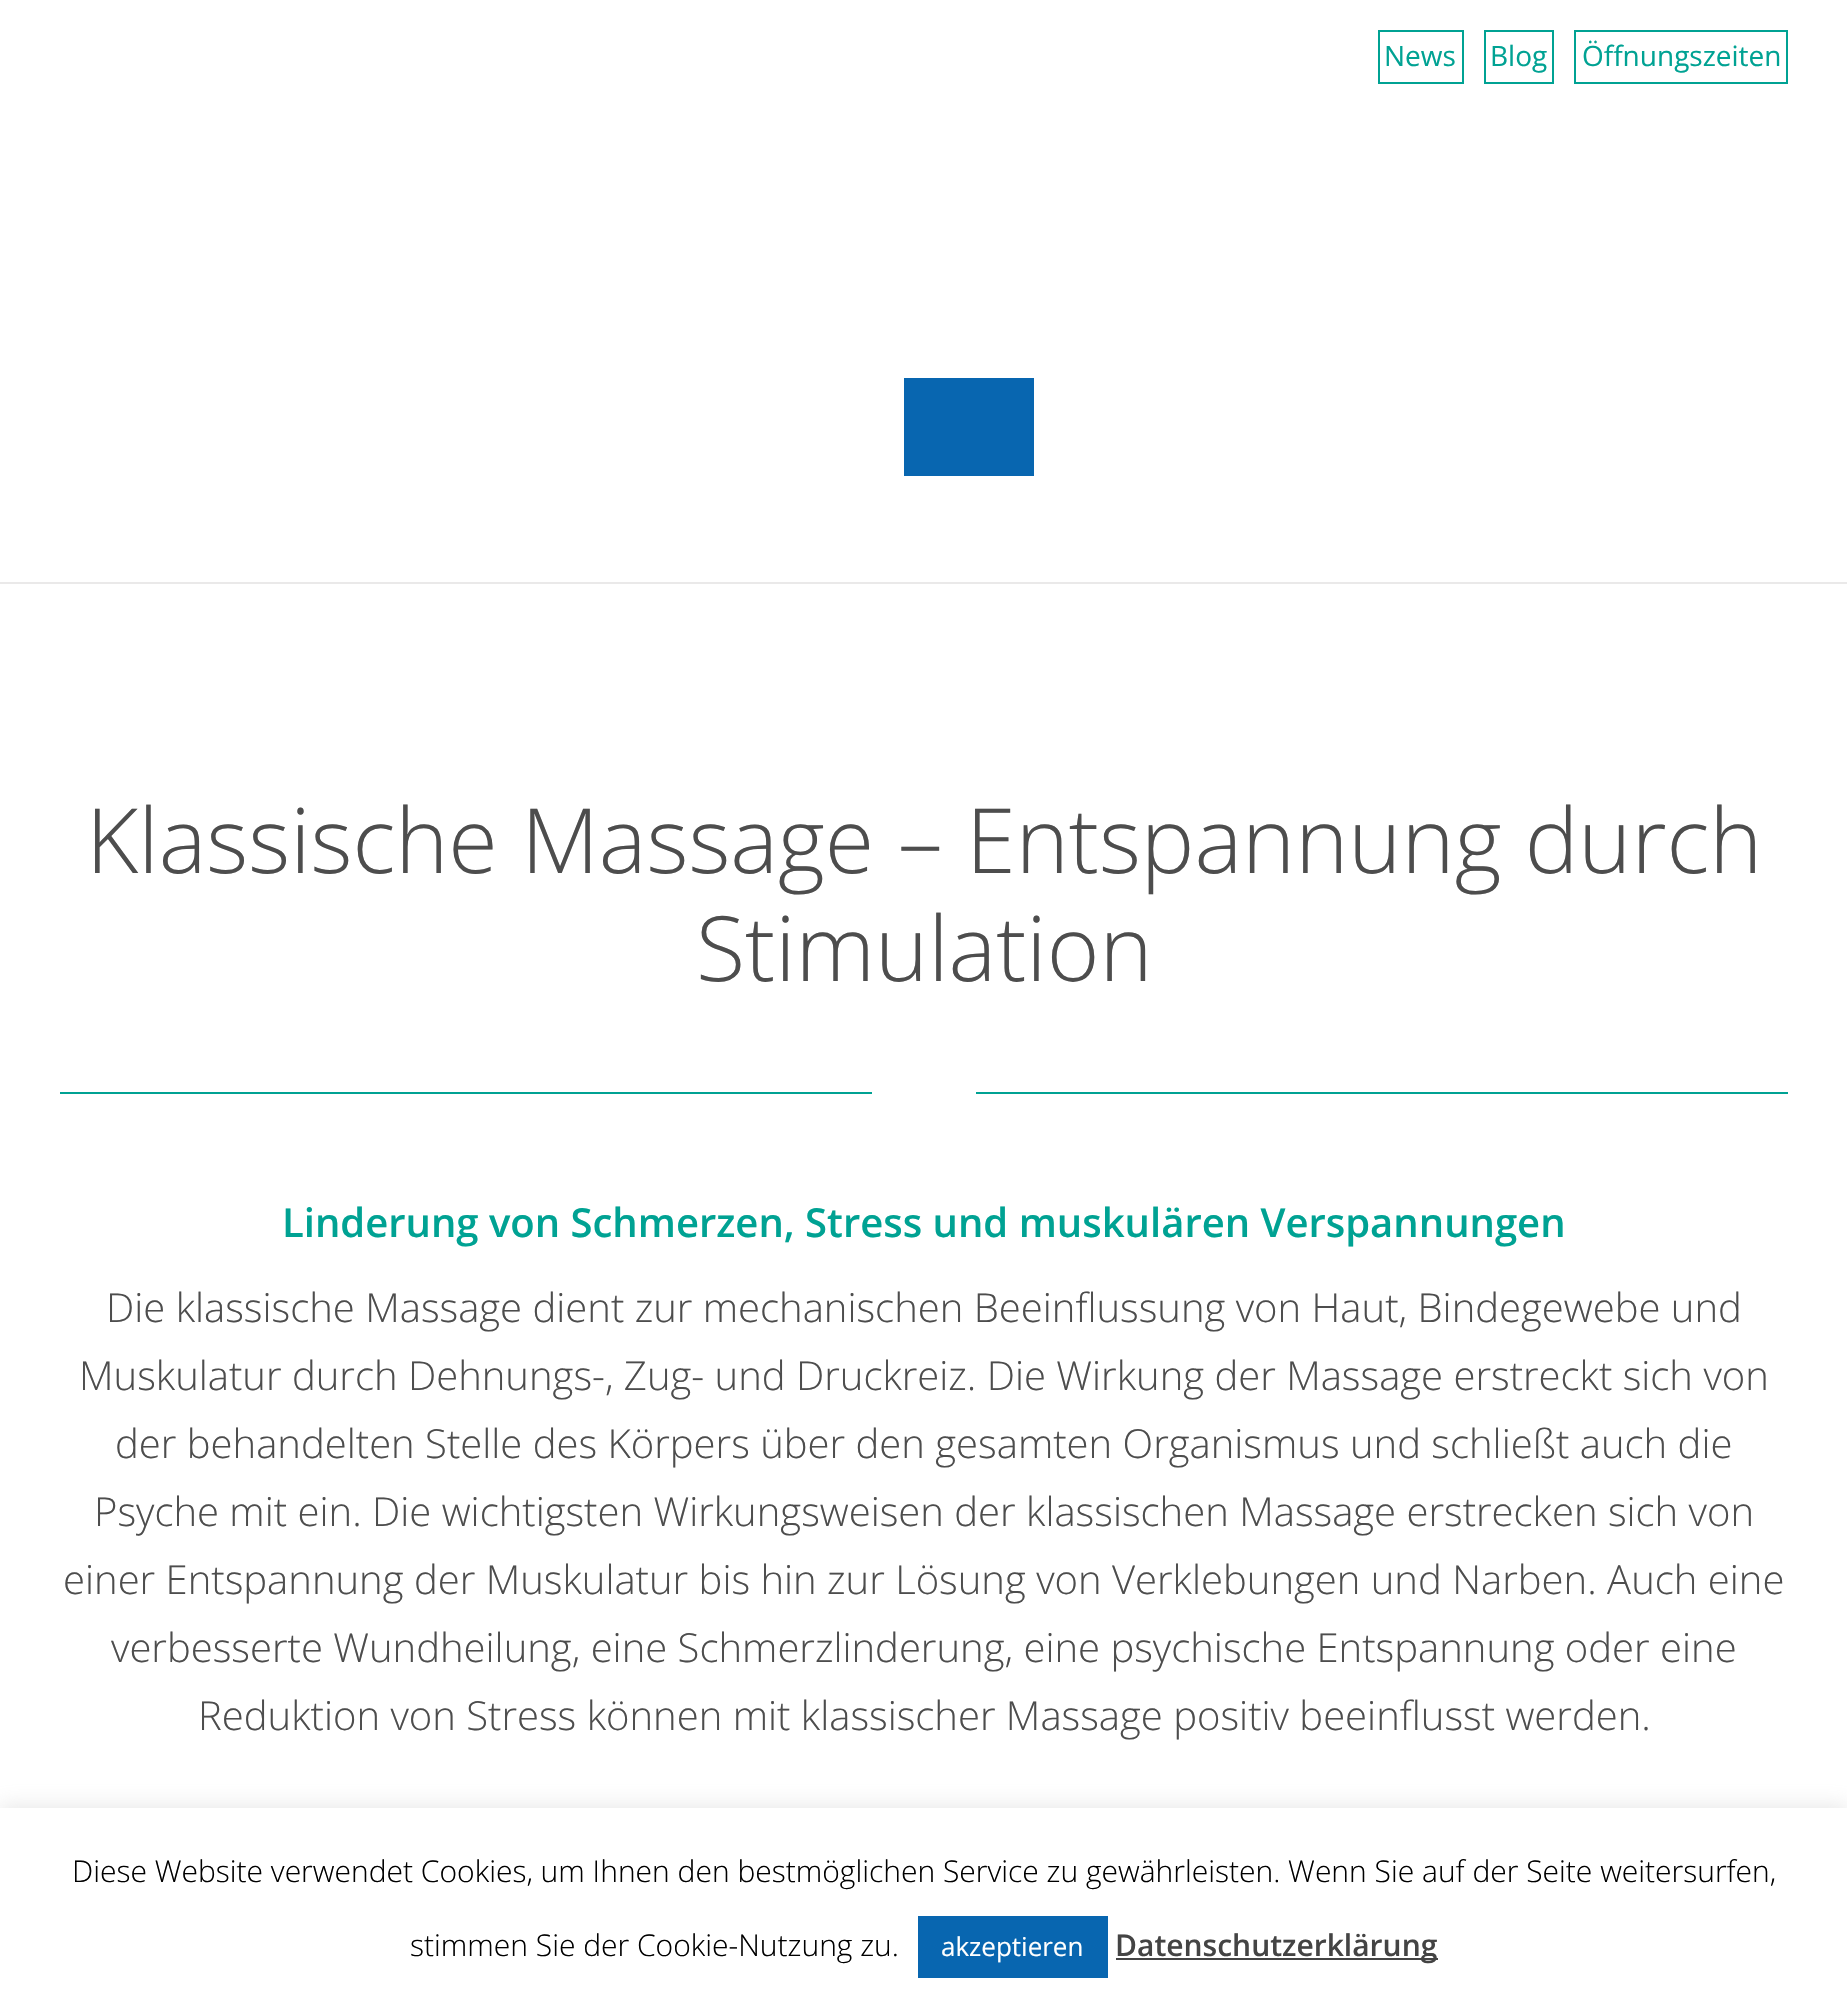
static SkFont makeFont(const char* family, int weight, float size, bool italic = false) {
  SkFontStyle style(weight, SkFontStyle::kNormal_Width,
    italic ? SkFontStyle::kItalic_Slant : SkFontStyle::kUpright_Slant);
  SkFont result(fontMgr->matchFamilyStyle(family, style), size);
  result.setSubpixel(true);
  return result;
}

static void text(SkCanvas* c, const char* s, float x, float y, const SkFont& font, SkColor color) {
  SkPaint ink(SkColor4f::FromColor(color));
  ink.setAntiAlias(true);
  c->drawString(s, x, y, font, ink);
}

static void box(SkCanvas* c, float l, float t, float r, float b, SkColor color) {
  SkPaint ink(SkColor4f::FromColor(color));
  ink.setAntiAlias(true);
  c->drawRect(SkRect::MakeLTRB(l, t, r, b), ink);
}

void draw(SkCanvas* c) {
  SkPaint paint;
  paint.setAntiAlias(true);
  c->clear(0xffffffff);
  paint.setStyle(SkPaint::kStroke_Style);
  paint.setStrokeWidth(2);
  paint.setColor(0xff00a293);
  c->drawRect(SkRect::MakeLTRB(1379, 31, 1463, 83), paint);
  SkFont face1 = makeFont("Open Sans", 400, 28);
  text(c, "News", 1384, 66, face1, 0xff00a293);
  c->drawRect(SkRect::MakeLTRB(1485, 31, 1553, 83), paint);
  text(c, "Blog", 1490, 66, face1, 0xff00a293);
  c->drawRect(SkRect::MakeLTRB(1575, 31, 1787, 83), paint);
  text(c, "Öffnungszeiten", 1582, 66, face1, 0xff00a293);
  box(c, 0, 582, 1847, 584, 0xffeae9e9);
  box(c, 904, 378, 1034, 476, 0xff0866b0);
  SkFont face2 = makeFont("Open Sans", 300, 90);
  text(c, "Klassische Massage – Entspannung durch", 86, 873, face2, 0xff4d4d4d);
  text(c, "Stimulation", 696, 981, face2, 0xff4d4d4d);
  box(c, 60, 1092, 872, 1094, 0xff00a293);
  box(c, 976, 1092, 1788, 1094, 0xff00a293);
  SkFont face3 = makeFont("Open Sans", 600, 40);
  text(c, "Linderung von Schmerzen, Stress und muskulären Verspannungen", 282, 1237, face3, 0xff00a293);
  SkFont face4 = makeFont("Open Sans", 300, 40);
  text(c, "Die klassische Massage dient zur mechanischen Beeinflussung von Haut, Bindegewebe und", 106, 1322, face4, 0xff4d4d4d);
  text(c, "Muskulatur durch Dehnungs-, Zug- und Druckreiz. Die Wirkung der Massage erstreckt sich von", 79, 1390, face4, 0xff4d4d4d);
  text(c, "der behandelten Stelle des Körpers über den gesamten Organismus und schließt auch die", 115, 1458, face4, 0xff4d4d4d);
  text(c, "Psyche mit ein. Die wichtigsten Wirkungsweisen der klassischen Massage erstrecken sich von", 94, 1526, face4, 0xff4d4d4d);
  text(c, "einer Entspannung der Muskulatur bis hin zur Lösung von Verklebungen und Narben. Auch eine", 63, 1594, face4, 0xff4d4d4d);
  text(c, "verbesserte Wundheilung, eine Schmerzlinderung, eine psychische Entspannung oder eine", 111, 1662, face4, 0xff4d4d4d);
  text(c, "Reduktion von Stress können mit klassischer Massage positiv beeinflusst werden.", 198, 1730, face4, 0xff4d4d4d);
  paint.setStyle(SkPaint::kFill_Style);
  paint.setColor(0x4dacabab);
  paint.setMaskFilter(SkMaskFilter::MakeBlur(kNormal_SkBlurStyle, 10));
  c->drawRect(SkRect::MakeLTRB(0, 1806, 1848, 2000), paint);
  paint.setMaskFilter(nullptr);
  box(c, 0, 1808, 1847, 2002, 0xffffffff);
  SkFont face5 = makeFont("Open Sans", 300, 30);
  text(c, "Diese Website verwendet Cookies, um Ihnen den bestmöglichen Service zu gewährleisten. Wenn Sie auf der Seite weitersurfen,", 72, 1882, face5, 0xff000000);
  text(c, "stimmen Sie der Cookie-Nutzung zu.", 410, 1956, face5, 0xff000000);
  box(c, 918, 1916, 1108, 1978, 0xff0866b0);
  SkFont face6 = makeFont("Open Sans", 400, 26);
  text(c, "akzeptieren", 941, 1956, face6, 0xffffffff);
  box(c, 1116, 1958, 1438, 1960, 0xff444444);
  SkFont face7 = makeFont("Open Sans", 600, 30);
  text(c, "Datenschutzerklärung", 1115, 1956, face7, 0xff444444);
}
